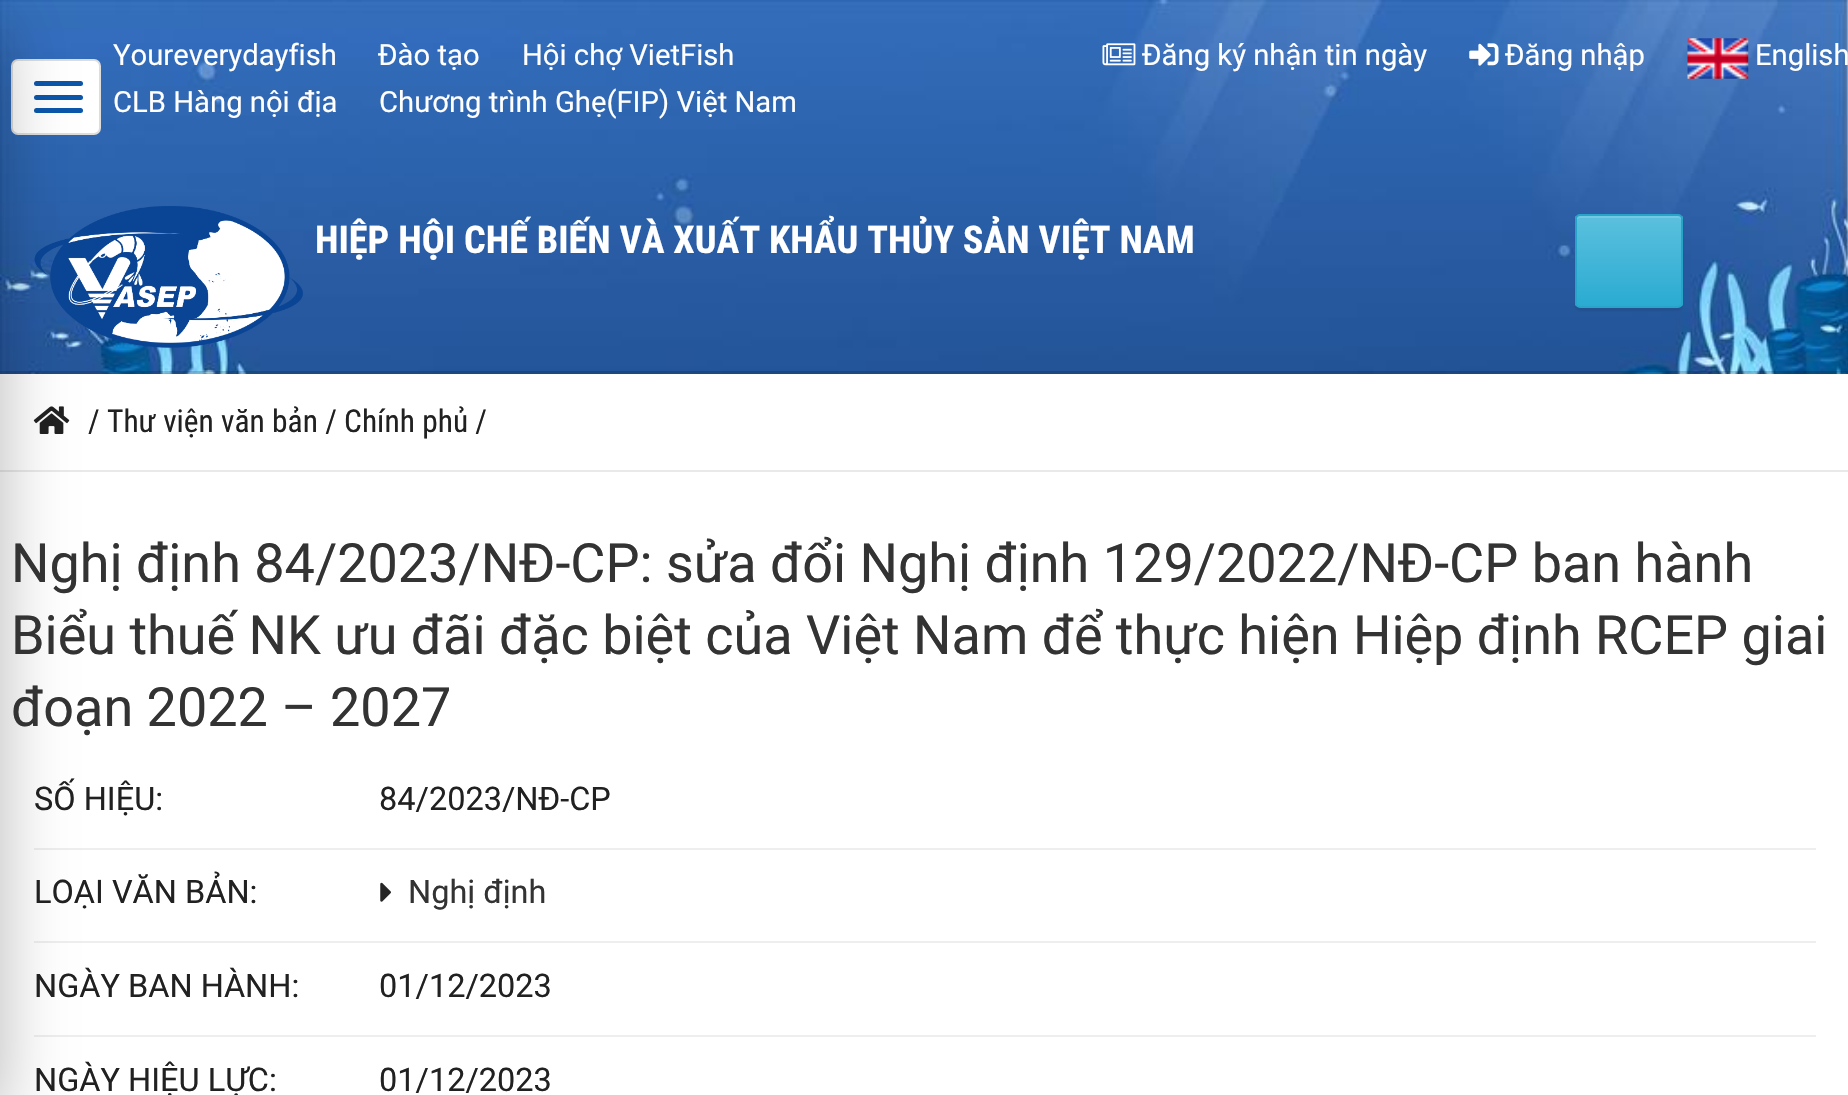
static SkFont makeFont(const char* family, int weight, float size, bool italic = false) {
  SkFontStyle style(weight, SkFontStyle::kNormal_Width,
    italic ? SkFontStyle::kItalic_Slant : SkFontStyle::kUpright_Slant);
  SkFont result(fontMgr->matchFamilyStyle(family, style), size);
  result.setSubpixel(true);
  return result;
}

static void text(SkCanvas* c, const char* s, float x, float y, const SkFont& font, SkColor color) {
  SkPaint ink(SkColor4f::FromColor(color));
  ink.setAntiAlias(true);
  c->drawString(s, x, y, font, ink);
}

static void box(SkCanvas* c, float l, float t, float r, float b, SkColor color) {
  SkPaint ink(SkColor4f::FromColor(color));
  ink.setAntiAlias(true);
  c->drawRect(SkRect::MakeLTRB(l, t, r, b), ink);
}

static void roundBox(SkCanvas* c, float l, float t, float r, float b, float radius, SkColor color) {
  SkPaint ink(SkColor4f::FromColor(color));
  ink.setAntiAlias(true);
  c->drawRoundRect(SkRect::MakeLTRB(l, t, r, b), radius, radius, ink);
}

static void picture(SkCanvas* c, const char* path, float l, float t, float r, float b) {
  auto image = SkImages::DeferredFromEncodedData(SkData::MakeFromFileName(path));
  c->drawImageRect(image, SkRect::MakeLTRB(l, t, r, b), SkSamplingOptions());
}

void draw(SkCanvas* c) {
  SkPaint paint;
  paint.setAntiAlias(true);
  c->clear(0xffffffff);
  picture(c, "img_01.png", 0, 0, 1848, 374);
  SkFont face1 = makeFont("Roboto", 400, 29.25f);
  text(c, "Youreverydayfish", 113, 65, face1, 0xffffffff);
  text(c, "Đào tạo", 378, 65, face1, 0xffffffff);
  text(c, "Hội chợ VietFish", 522, 65, face1, 0xffffffff);
  text(c, "CLB Hàng nội địa", 113, 112, face1, 0xffffffff);
  text(c, "Chương trình Ghẹ(FIP) Việt Nam", 379, 112, face1, 0xffffffff);
  picture(c, "img_02.png", 1102, 43, 1136, 66);
  text(c, "Đăng ký nhận tin ngày", 1142, 65, face1, 0xffffffff);
  picture(c, "img_03.png", 1469, 43, 1499, 66);
  text(c, "Đăng nhập", 1505, 65, face1, 0xffffffff);
  picture(c, "img_04.png", 1687, 38, 1749, 79);
  text(c, "English", 1755, 65, face1, 0xffffffff);
  c->save();
  c->clipRect(SkRect::MakeLTRB(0, 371, 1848, 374));
  paint.setColor(0x1f000000);
  paint.setMaskFilter(SkMaskFilter::MakeBlur(kNormal_SkBlurStyle, 3.5f));
  c->drawRect(SkRect::MakeLTRB(0, 185, 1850, 374), paint);
  paint.setMaskFilter(nullptr);
  paint.setMaskFilter(SkMaskFilter::MakeBlur(kNormal_SkBlurStyle, 3.5f));
  c->drawRect(SkRect::MakeLTRB(0, 185, 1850, 374), paint);
  paint.setMaskFilter(nullptr);
  c->restore();
  paint.setColor(0xffffffff);
  c->drawRoundRect(SkRect::MakeLTRB(12, 60, 100, 134), 6, 6, paint);
  paint.setStyle(SkPaint::kStroke_Style);
  paint.setStrokeWidth(2);
  paint.setColor(0xffdddddd);
  c->drawRoundRect(SkRect::MakeLTRB(12, 60, 100, 134), 6, 6, paint);
  roundBox(c, 34, 81, 83, 86, 2.5f, 0xff0b56aa);
  roundBox(c, 34, 95, 83, 100, 2.5f, 0xff0b56aa);
  roundBox(c, 34, 108, 83, 113, 2.5f, 0xff0b56aa);
  picture(c, "img_05.png", 34, 206, 303, 348);
  box(c, 0, 374, 1848, 380, 0xffffffff);
  box(c, 0, 470, 1848, 472, 0xffe9e9e9);
  picture(c, "img_06.png", 33, 406, 70, 434);
  box(c, 34, 848, 1816, 850, 0xffeeeeee);
  box(c, 34, 941, 1816, 943, 0xffeeeeee);
  box(c, 34, 1035, 1816, 1037, 0xffeeeeee);
  paint.setStyle(SkPaint::kFill_Style);
  paint.setColor(0x47000000);
  paint.setMaskFilter(SkMaskFilter::MakeBlur(kNormal_SkBlurStyle, 34));
  c->drawRect(SkRect::MakeLTRB(-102, 23, 0, 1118), paint);
  paint.setMaskFilter(nullptr);
  SkFont face2 = makeFont("Roboto Condensed", 700, 38.25f);
  text(c, "HIỆP HỘI CHẾ BIẾN VÀ XUẤT KHẨU THỦY SẢN VIỆT NAM", 315, 253, face2, 0xffffffff);
  paint.setColor(0x12000000);
  paint.setMaskFilter(SkMaskFilter::MakeBlur(kNormal_SkBlurStyle, 1));
  c->drawRoundRect(SkRect::MakeLTRB(1575, 216, 1683, 311), 5, 5, paint);
  paint.setMaskFilter(nullptr);
  c->save();
  c->clipPath(SkPathBuilder().moveTo(1580, 214).lineTo(1678, 214).cubicTo(1681, 214, 1683, 216, 1683, 219).lineTo(1683, 303).cubicTo(1683, 306, 1681, 308, 1678, 308).lineTo(1580, 308).cubicTo(1577, 308, 1575, 306, 1575, 303).lineTo(1575, 219).cubicTo(1575, 216, 1577, 214, 1580, 214).close().detach(), true);
  {
    const SkColor colors[] = {0xff5bc0de, 0xff2aabd2};
    const float stops[] = {0, 1};
    const SkPoint ends[] = {{1629, 216}, {1629, 306}};
    paint.setShader(SkGradientShader::MakeLinear(ends, colors, stops, 2, SkTileMode::kClamp));
    paint.setAlpha(255);
  }
  c->drawRect(SkRect::MakeLTRB(1575, 216, 1683, 306), paint);
  c->restore();
  paint.setShader(nullptr);
  paint.setColor(0xff73c9e3);
  c->drawPath(SkPathBuilder().moveTo(1580, 218).lineTo(1678, 218).cubicTo(1680, 218, 1681, 219, 1681, 220).lineTo(1681, 218).cubicTo(1681, 217, 1680, 216, 1679, 216).lineTo(1579, 216).cubicTo(1578, 216, 1577, 217, 1577, 218).lineTo(1577, 220).cubicTo(1577, 219, 1578, 218, 1580, 218).close().detach(), paint);
  paint.setStyle(SkPaint::kStroke_Style);
  paint.setColor(0xff28a4c9);
  c->drawRoundRect(SkRect::MakeLTRB(1576, 215, 1682, 307), 4, 4, paint);
  SkFont face3 = makeFont("Roboto Condensed", 400, 31.5f);
  text(c, "/", 88, 432, face3, 0xff212121);
  text(c, "Thư viện văn bản / Chính phủ /", 107, 432, face3, 0xff212121);
  SkFont face4 = makeFont("Roboto", 400, 54);
  text(c, "Nghị định 84/2023/NĐ-CP: sửa đổi Nghị định 129/2022/NĐ-CP ban hành", 11, 582, face4, 0xff333333);
  text(c, "Biểu thuế NK ưu đãi đặc biệt của Việt Nam để thực hiện Hiệp định RCEP giai", 11, 654, face4, 0xff333333);
  text(c, "đoạn 2022 – 2027", 11, 726, face4, 0xff333333);
  SkFont face5 = makeFont("Roboto", 400, 32.5f);
  text(c, "SỐ HIỆU:", 34, 810, face5, 0xff212121);
  text(c, "84/2023/NĐ-CP", 379, 810, face5, 0xff212121);
  text(c, "LOẠI VĂN BẢN:", 34, 903, face5, 0xff212121);
  picture(c, "img_07.png", 380, 882, 391, 902);
  text(c, "Nghị định", 408, 903, face5, 0xff333333);
  text(c, "NGÀY BAN HÀNH:", 34, 997, face5, 0xff212121);
  text(c, "01/12/2023", 379, 997, face5, 0xff212121);
  text(c, "NGÀY HIỆU LỰC:", 34, 1091, face5, 0xff212121);
  text(c, "01/12/2023", 379, 1091, face5, 0xff212121);
}
